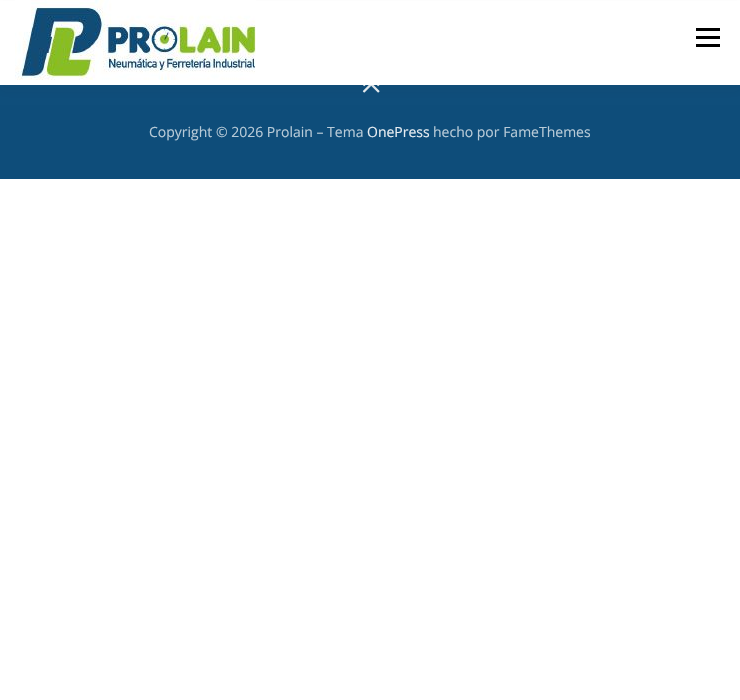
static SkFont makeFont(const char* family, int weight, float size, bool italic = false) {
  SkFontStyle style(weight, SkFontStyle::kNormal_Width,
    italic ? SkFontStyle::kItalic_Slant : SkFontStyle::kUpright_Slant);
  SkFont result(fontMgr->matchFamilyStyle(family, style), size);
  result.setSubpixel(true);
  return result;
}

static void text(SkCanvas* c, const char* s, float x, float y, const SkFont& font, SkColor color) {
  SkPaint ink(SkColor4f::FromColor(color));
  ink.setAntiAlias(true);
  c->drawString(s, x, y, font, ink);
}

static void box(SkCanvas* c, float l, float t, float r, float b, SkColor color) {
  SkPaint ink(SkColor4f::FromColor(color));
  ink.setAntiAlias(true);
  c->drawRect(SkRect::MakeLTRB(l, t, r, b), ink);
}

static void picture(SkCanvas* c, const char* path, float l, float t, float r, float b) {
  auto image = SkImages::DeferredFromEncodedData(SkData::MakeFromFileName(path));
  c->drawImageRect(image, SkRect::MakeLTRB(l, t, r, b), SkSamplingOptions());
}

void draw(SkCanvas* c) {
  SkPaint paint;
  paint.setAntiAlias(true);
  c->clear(0xffffffff);
  box(c, 0, 85, 740, 179, 0xff0e4d7a);
  paint.setColor(0xff0e4d7a);
  c->drawPath(SkPathBuilder().moveTo(335, 85).lineTo(356, 64).cubicTo(364, 56, 376, 56, 384, 64).lineTo(405, 85).lineTo(370, 120).close().detach(), paint);
  picture(c, "img_02.png", 362, 85, 380, 93);
  paint.setColor(0x0f323232);
  paint.setMaskFilter(SkMaskFilter::MakeBlur(kNormal_SkBlurStyle, 5));
  c->drawRect(SkRect::MakeLTRB(0, 5, 740, 90), paint);
  paint.setMaskFilter(nullptr);
  box(c, 0, 1, 740, 85, 0xffffffff);
  picture(c, "img_01.png", 15, 0, 256, 80);
  box(c, 696, 36, 720, 39, 0xff000000);
  box(c, 696, 28, 720, 31, 0xff000000);
  box(c, 696, 44, 720, 47, 0xff000000);
  SkFont face1 = makeFont("Open Sans", 400, 14);
  text(c, "Copyright © 2026 Prolain – Tema", 149, 137, face1, 0xffb7cad7);
  text(c, "OnePress", 367, 137, face1, 0xffe7edf2);
  text(c, "hecho por FameThemes", 433, 137, face1, 0xffb7cad7);
}
